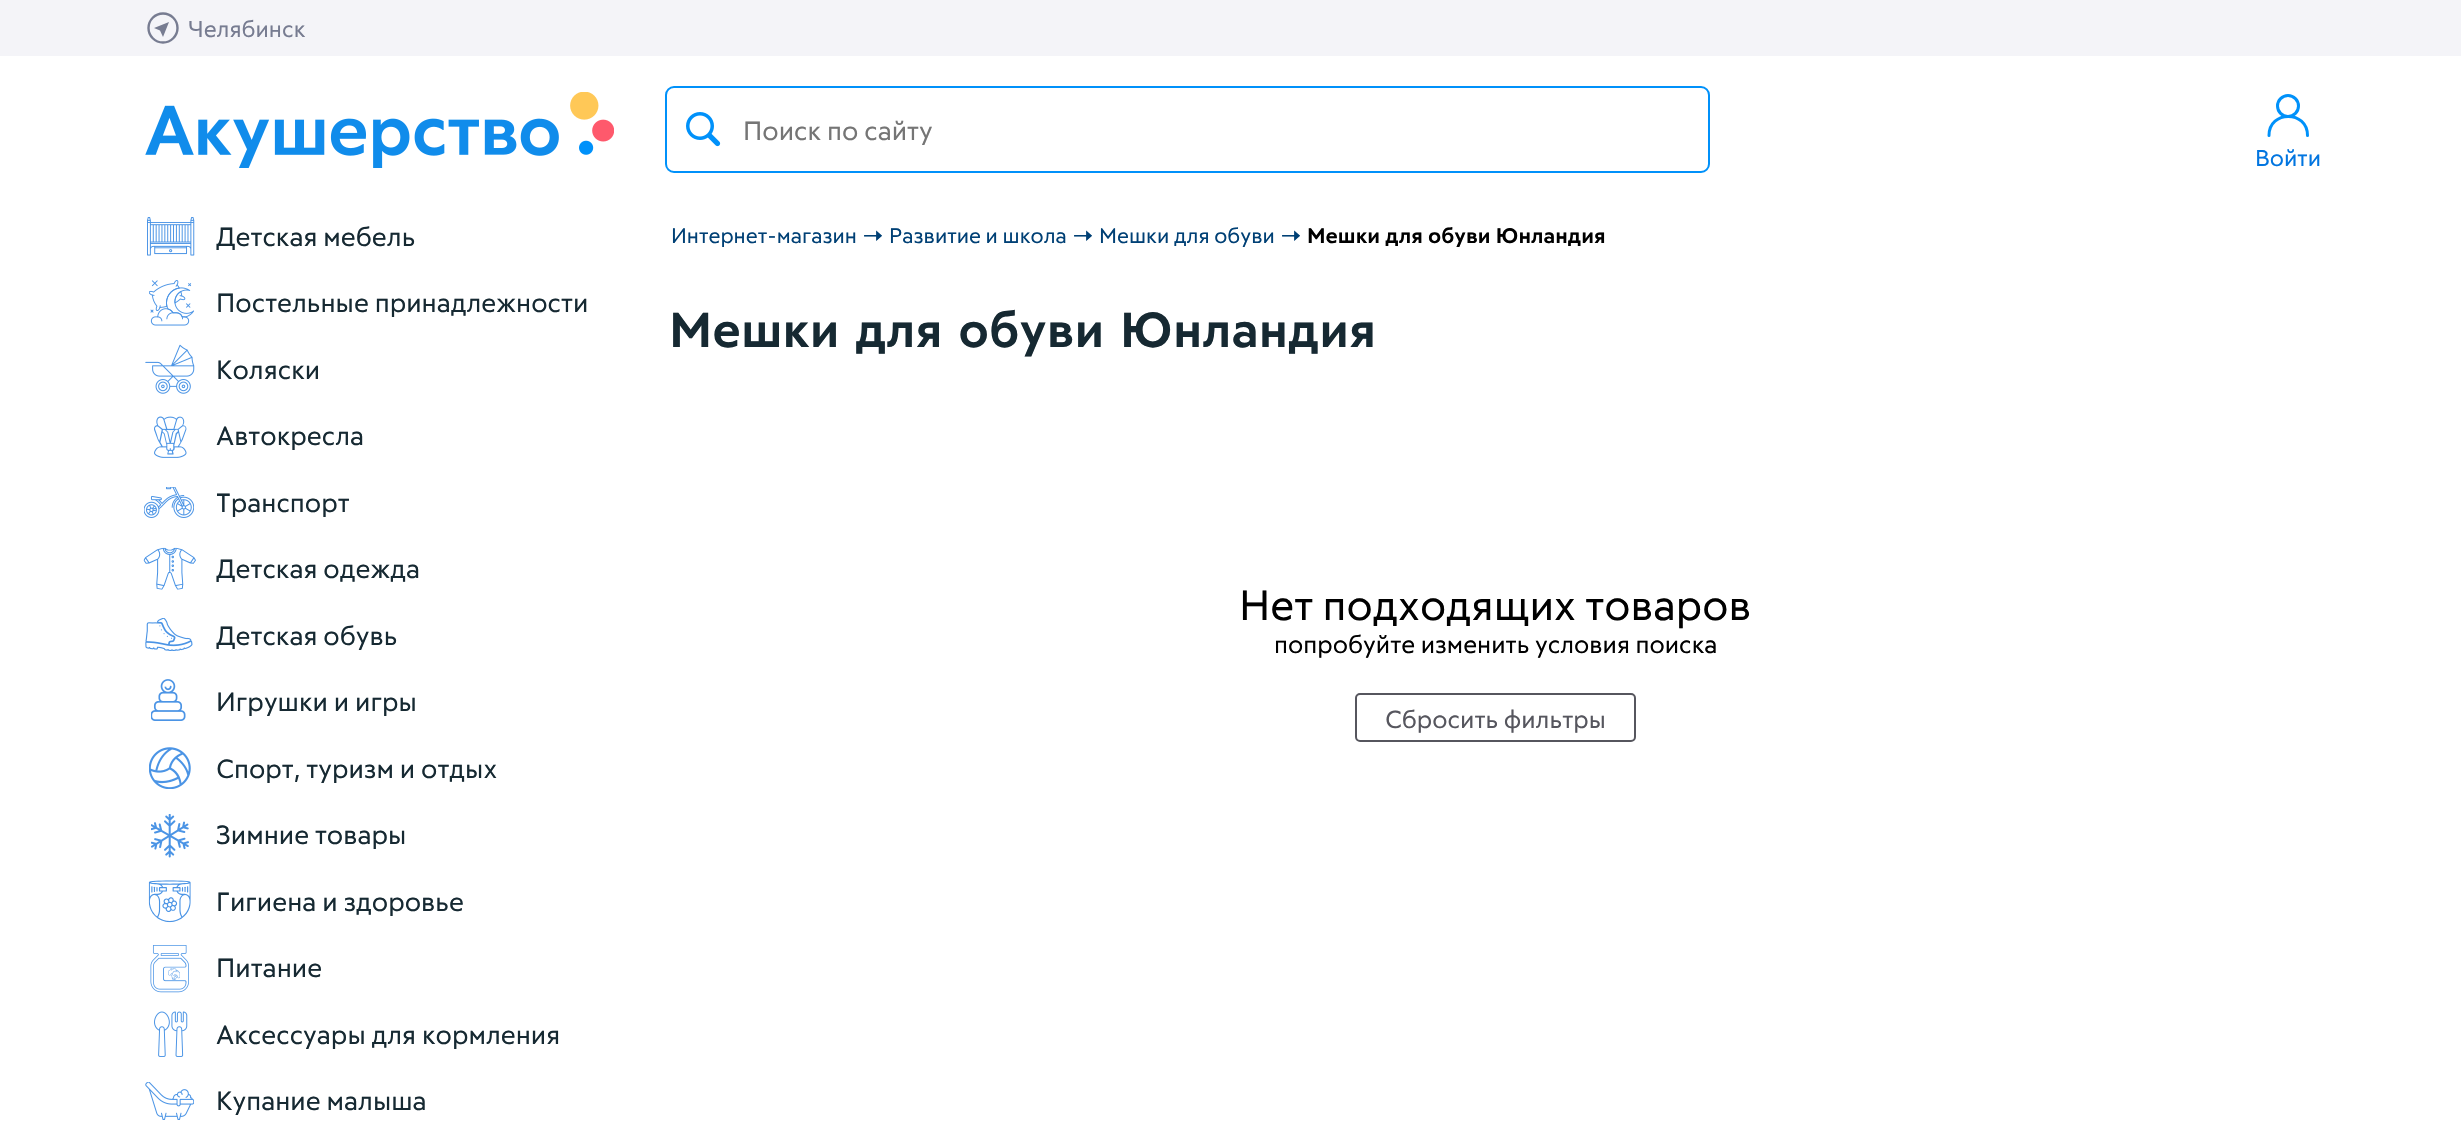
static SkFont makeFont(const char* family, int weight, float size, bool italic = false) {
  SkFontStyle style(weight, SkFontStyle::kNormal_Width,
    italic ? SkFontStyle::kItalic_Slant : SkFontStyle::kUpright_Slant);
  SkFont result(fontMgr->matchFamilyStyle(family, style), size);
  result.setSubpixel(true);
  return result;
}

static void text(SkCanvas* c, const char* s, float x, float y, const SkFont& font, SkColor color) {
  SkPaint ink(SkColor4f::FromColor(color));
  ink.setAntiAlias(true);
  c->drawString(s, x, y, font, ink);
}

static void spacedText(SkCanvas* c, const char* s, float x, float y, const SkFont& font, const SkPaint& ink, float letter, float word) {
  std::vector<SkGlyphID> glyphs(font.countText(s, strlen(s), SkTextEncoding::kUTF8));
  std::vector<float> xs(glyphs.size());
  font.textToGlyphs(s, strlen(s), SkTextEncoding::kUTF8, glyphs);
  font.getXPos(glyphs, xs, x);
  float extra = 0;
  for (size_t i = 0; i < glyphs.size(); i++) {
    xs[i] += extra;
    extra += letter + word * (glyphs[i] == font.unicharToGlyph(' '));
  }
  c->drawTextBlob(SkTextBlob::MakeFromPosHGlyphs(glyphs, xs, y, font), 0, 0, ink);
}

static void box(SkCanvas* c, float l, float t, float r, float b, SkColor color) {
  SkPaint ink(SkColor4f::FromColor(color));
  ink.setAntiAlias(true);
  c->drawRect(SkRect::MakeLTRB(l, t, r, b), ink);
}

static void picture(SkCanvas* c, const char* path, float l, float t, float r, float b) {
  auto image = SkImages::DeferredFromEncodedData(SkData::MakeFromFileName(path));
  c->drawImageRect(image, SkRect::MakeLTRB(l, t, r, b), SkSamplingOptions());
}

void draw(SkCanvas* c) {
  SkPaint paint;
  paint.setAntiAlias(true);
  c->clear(0xffffffff);
  box(c, 0, 0, 2461, 56, 0xfff4f4f8);
  paint.setStyle(SkPaint::kStroke_Style);
  paint.setStrokeWidth(2.4f);
  paint.setColor(0xff777c91);
  c->drawCircle(163, 28, 14.5f, paint);
  paint.setStyle(SkPaint::kFill_Style);
  c->drawPath(SkPathBuilder().moveTo(154, 28).lineTo(169, 22).lineTo(163, 37).lineTo(160, 30.5f).close().detach(), paint);
  SkFont face1 = makeFont("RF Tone", 400, 22.75f);
  text(c, "Челябинск", 188, 37, face1, 0xff777c91);
  picture(c, "img_01.png", 145, 92, 614, 168);
  paint.setStyle(SkPaint::kStroke_Style);
  paint.setStrokeWidth(2);
  paint.setColor(0xff0091fa);
  c->drawRoundRect(SkRect::MakeLTRB(666, 87, 1709, 172), 8, 8, paint);
  picture(c, "img_02.png", 686, 112, 721, 147);
  SkFont face2 = makeFont("RF Tone", 400, 26.25f);
  text(c, "Поиск по сайту", 743, 140, face2, 0xff757575);
  paint.setStrokeWidth(3);
  paint.setStrokeCap(SkPaint::kRound_Cap);
  paint.setStrokeJoin(SkPaint::kRound_Join);
  c->drawPath(SkPathBuilder().moveTo(2269, 135.5f).cubicTo(2269, 110, 2307.5f, 110, 2307.5f, 135.5f).detach(), paint);
  paint.setStrokeCap(SkPaint::kButt_Cap);
  paint.setStrokeJoin(SkPaint::kMiter_Join);
  c->drawCircle(2288, 106, 10.5f, paint);
  text(c, "Войти", 2255, 166, face1, 0xff0175e0);
  picture(c, "img_03.png", 147, 217, 195, 256);
  text(c, "Детская мебель", 216, 246, face2, 0xff162932);
  picture(c, "img_04.png", 149, 280, 194, 326);
  text(c, "Постельные принадлежности", 216, 312, face2, 0xff162932);
  picture(c, "img_05.png", 145, 344, 195, 394);
  text(c, "Коляски", 216, 379, face2, 0xff162932);
  picture(c, "img_06.png", 154, 416, 187, 458);
  text(c, "Автокресла", 216, 445, face2, 0xff162932);
  picture(c, "img_07.png", 144, 487, 194, 518);
  text(c, "Транспорт", 216, 512, face2, 0xff162932);
  picture(c, "img_08.png", 143, 547, 196, 590);
  text(c, "Детская одежда", 216, 578, face2, 0xff162932);
  picture(c, "img_09.png", 145, 618, 193, 651);
  text(c, "Детская обувь", 216, 645, face2, 0xff162932);
  picture(c, "img_10.png", 151, 679, 186, 721);
  text(c, "Игрушки и игры", 216, 711, face2, 0xff162932);
  picture(c, "img_11.png", 149, 747, 191, 789);
  text(c, "Спорт, туризм и отдых", 216, 778, face2, 0xff162932);
  picture(c, "img_12.png", 151, 814, 189, 858);
  text(c, "Зимние товары", 216, 844, face2, 0xff162932);
  picture(c, "img_13.png", 148, 880, 191, 923);
  text(c, "Гигиена и здоровье", 216, 911, face2, 0xff162932);
  picture(c, "img_14.png", 150, 945, 189, 993);
  text(c, "Питание", 216, 977, face2, 0xff162932);
  picture(c, "img_15.png", 154, 1011, 188, 1057);
  text(c, "Аксессуары для кормления", 216, 1044, face2, 0xff162932);
  picture(c, "img_16.png", 145, 1082, 194, 1120);
  text(c, "Купание малыша", 216, 1110, face2, 0xff162932);
  SkFont face3 = makeFont("RF Tone", 400, 21);
  text(c, "Интернет-магазин", 671, 243, face3, 0xff004075);
  text(c, "→", 862, 243, face2, 0xff004075);
  text(c, "Развитие и школа", 889, 243, face3, 0xff004075);
  text(c, "→", 1072, 243, face2, 0xff004075);
  text(c, "Мешки для обуви", 1099, 243, face3, 0xff004075);
  text(c, "→", 1280, 243, face2, 0xff004075);
  SkFont face4 = makeFont("RF Tone", 700, 21);
  text(c, "Мешки для обуви Юнландия", 1307, 243, face4, 0xff000000);
  SkFont face5 = makeFont("RF Tone", 700, 49);
  paint.setStyle(SkPaint::kFill_Style);
  paint.setColor(0xff162932);
  spacedText(c, "Мешки для обуви Юнландия", 669, 347, face5, paint, 0, 3.5f);
  SkFont face6 = makeFont("RF Tone", 400, 42);
  text(c, "Нет подходящих товаров", 1239, 620, face6, 0xff000000);
  SkFont face7 = makeFont("RF Tone", 400, 24.5f);
  text(c, "попробуйте изменить условия поиска", 1274, 653, face7, 0xff000000);
  paint.setStyle(SkPaint::kStroke_Style);
  paint.setStrokeWidth(2);
  paint.setColor(0xff56565e);
  c->drawRoundRect(SkRect::MakeLTRB(1356, 694, 1635, 741), 4, 4, paint);
  text(c, "Сбросить фильтры", 1385, 728, face7, 0xff56565e);
}
